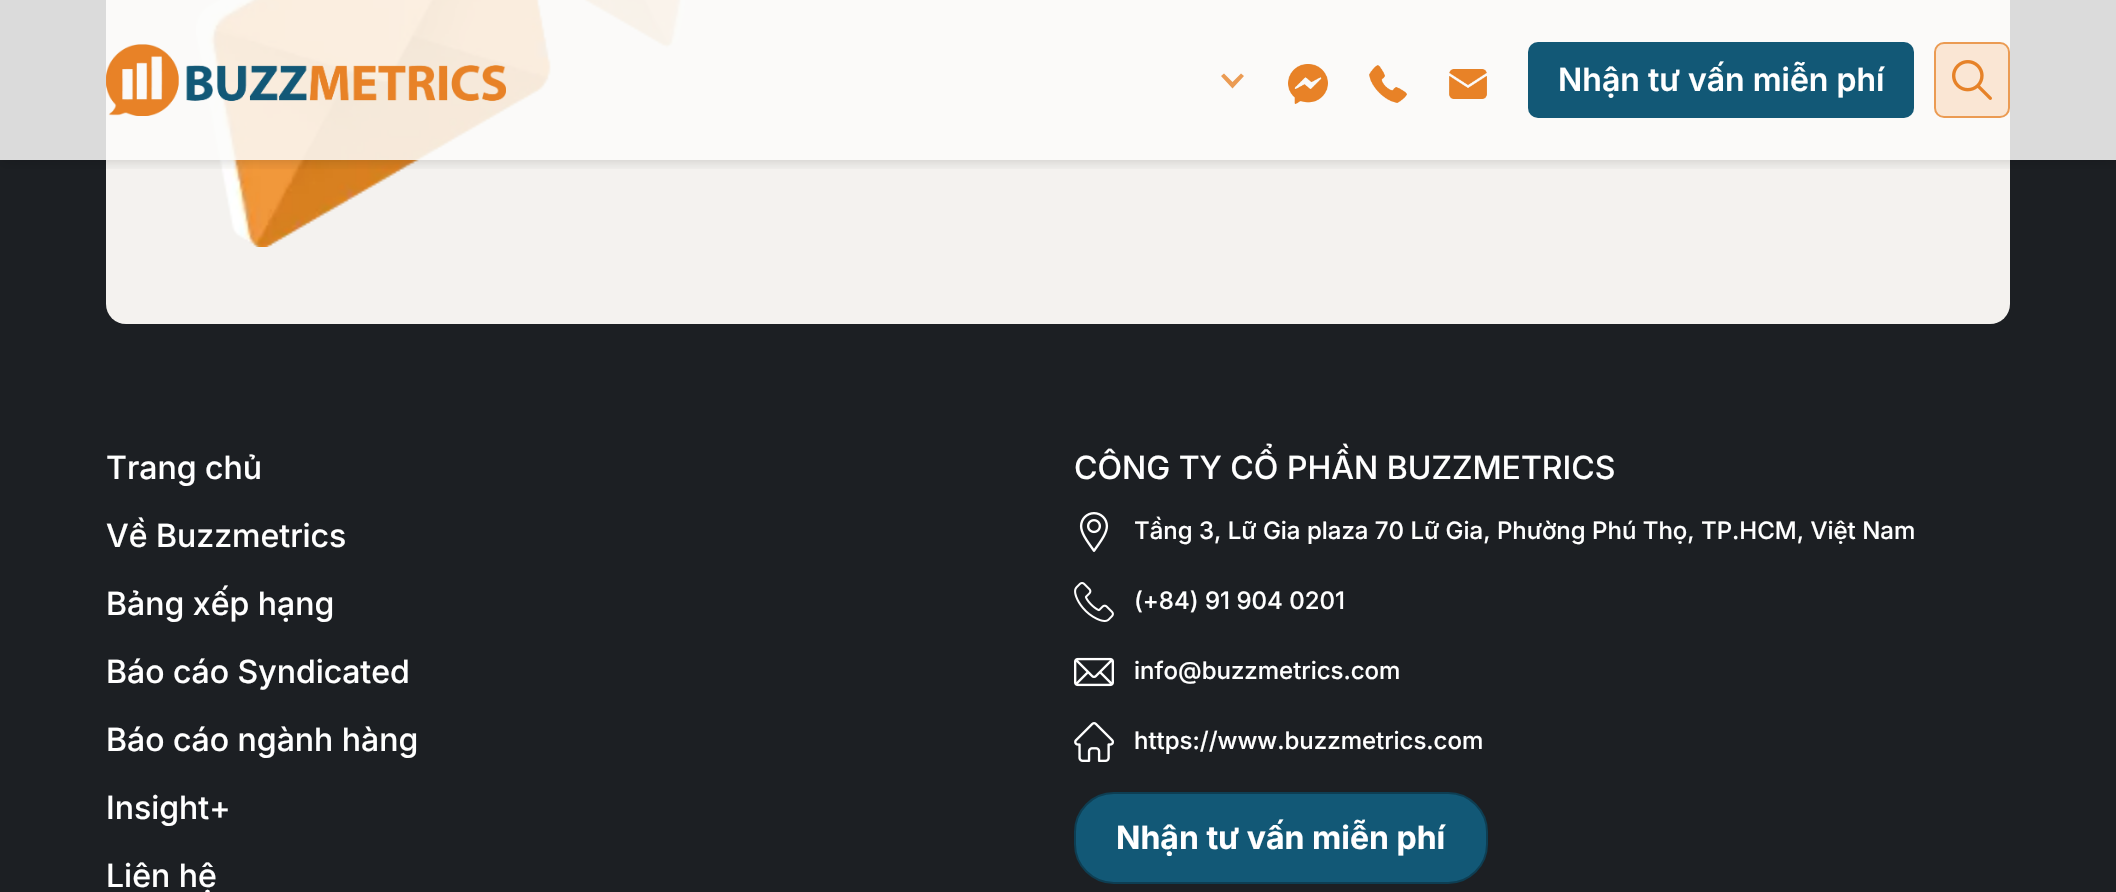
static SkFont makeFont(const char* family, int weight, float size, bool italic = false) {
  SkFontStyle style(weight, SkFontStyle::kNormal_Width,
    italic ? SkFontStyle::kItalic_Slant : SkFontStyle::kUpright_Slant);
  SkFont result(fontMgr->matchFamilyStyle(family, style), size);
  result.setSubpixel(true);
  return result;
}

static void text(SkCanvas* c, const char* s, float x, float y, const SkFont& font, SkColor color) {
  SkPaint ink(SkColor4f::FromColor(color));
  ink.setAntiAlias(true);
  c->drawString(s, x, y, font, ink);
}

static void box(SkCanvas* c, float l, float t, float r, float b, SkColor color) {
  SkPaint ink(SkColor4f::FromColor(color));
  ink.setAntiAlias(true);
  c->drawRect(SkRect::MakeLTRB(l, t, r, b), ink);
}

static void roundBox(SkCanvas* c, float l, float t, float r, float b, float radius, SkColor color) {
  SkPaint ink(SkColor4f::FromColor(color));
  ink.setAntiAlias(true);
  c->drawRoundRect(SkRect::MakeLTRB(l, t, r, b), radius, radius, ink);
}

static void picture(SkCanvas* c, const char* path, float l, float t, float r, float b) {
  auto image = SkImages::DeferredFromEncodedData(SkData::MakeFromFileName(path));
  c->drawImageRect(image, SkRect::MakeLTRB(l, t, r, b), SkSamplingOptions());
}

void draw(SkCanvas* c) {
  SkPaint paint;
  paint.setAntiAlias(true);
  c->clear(0xff1c1f23);
  roundBox(c, 106, -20, 2010, 324, 20, 0xfff4f2ef);
  picture(c, "img_06.png", 196, 0, 685, 247);
  c->save();
  c->clipRect(SkRect::MakeLTRB(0, 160, 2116, 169));
  paint.setColor(0x26000000);
  paint.setMaskFilter(SkMaskFilter::MakeBlur(kNormal_SkBlurStyle, 6));
  c->drawRect(SkRect::MakeLTRB(2, 2, 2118, 162), paint);
  paint.setMaskFilter(nullptr);
  c->restore();
  box(c, 0, 0, 2116, 160, 0xd9fcfbfa);
  picture(c, "img_01.png", 106, 44, 506, 116);
  paint.setColor(0xffeb9b53);
  c->drawPath(SkPathBuilder().moveTo(1241, 73.5f).lineTo(1232.5f, 82).lineTo(1224, 73.5f).lineTo(1221, 76).lineTo(1232.5f, 88.5f).lineTo(1244, 76).close().detach(), paint);
  picture(c, "img_02.png", 1288, 64, 1328, 104);
  picture(c, "img_03.png", 1369, 65, 1407, 103);
  picture(c, "img_04.png", 1449, 69, 1487, 99);
  roundBox(c, 1528, 42, 1914, 118, 10, 0xff125876);
  SkFont face1 = makeFont("Inter", 600, 32);
  text(c, "Nhận tư vấn miễn phí", 1558, 91, face1, 0xffffffff);
  paint.setColor(0xfffae6d4);
  c->drawRoundRect(SkRect::MakeLTRB(1935, 43, 2009, 117), 9, 9, paint);
  paint.setStyle(SkPaint::kStroke_Style);
  paint.setStrokeWidth(2);
  paint.setColor(0xffeb9b53);
  c->drawRoundRect(SkRect::MakeLTRB(1935, 43, 2009, 117), 9, 9, paint);
  picture(c, "img_05.png", 1952, 60, 1992, 100);
  SkFont face2 = makeFont("Inter", 500, 32);
  text(c, "Trang chủ", 106, 479, face2, 0xffffffff);
  text(c, "Về Buzzmetrics", 106, 547, face2, 0xffffffff);
  text(c, "Bảng xếp hạng", 106, 615, face2, 0xffffffff);
  text(c, "Báo cáo Syndicated", 106, 683, face2, 0xffffffff);
  text(c, "Báo cáo ngành hàng", 106, 751, face2, 0xffffffff);
  text(c, "Insight+", 106, 819, face2, 0xffffffff);
  text(c, "Liên hệ", 106, 887, face2, 0xffffffff);
  text(c, "CÔNG TY CỔ PHẦN BUZZMETRICS", 1074, 479, face2, 0xffffffff);
  picture(c, "img_07.png", 1079, 512, 1109, 552);
  SkFont face3 = makeFont("Inter", 500, 24);
  text(c, "Tầng 3, Lữ Gia plaza 70 Lữ Gia, Phường Phú Thọ, TP.HCM, Việt Nam", 1134, 539, face3, 0xffffffff);
  picture(c, "img_08.png", 1074, 582, 1114, 622);
  text(c, "(+84) 91 904 0201", 1134, 609, face3, 0xffffffff);
  picture(c, "img_09.png", 1074, 657, 1114, 687);
  text(c, "info@buzzmetrics.com", 1134, 679, face3, 0xffffffff);
  picture(c, "img_10.png", 1074, 722, 1114, 762);
  text(c, "https://www.buzzmetrics.com", 1134, 749, face3, 0xffffffff);
  paint.setStyle(SkPaint::kFill_Style);
  paint.setColor(0xff125876);
  c->drawRoundRect(SkRect::MakeLTRB(1075, 793, 1487, 883), 39, 39, paint);
  paint.setStyle(SkPaint::kStroke_Style);
  paint.setColor(0xff0d3e53);
  c->drawRoundRect(SkRect::MakeLTRB(1075, 793, 1487, 883), 39, 39, paint);
  SkFont face4 = makeFont("Inter", 700, 32);
  text(c, "Nhận tư vấn miễn phí", 1116, 849, face4, 0xffffffff);
}
